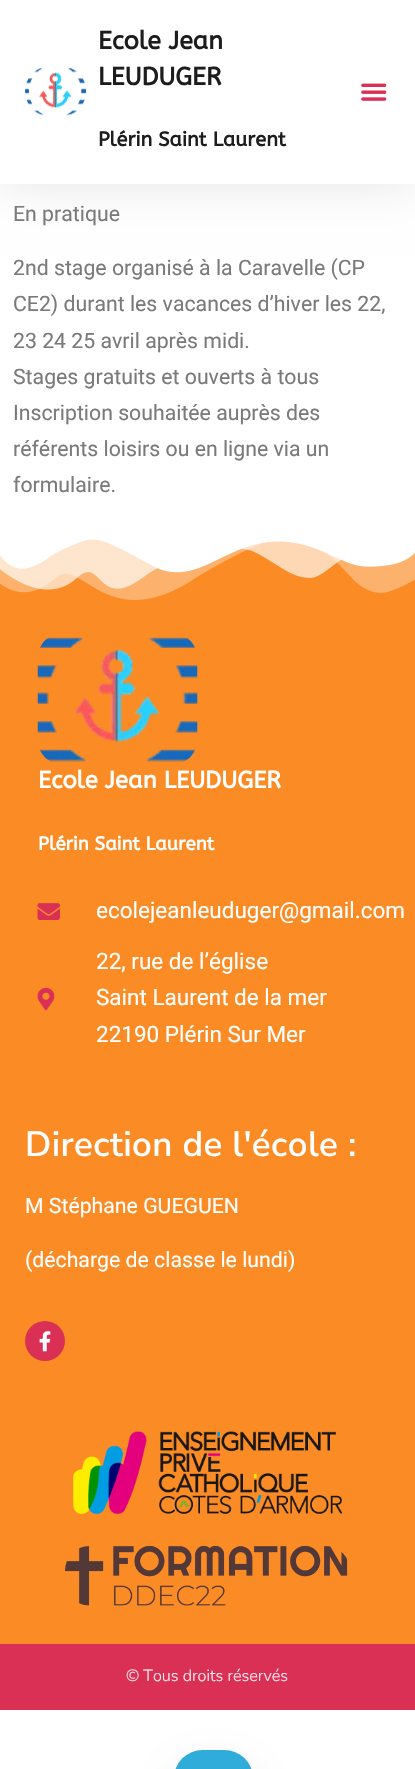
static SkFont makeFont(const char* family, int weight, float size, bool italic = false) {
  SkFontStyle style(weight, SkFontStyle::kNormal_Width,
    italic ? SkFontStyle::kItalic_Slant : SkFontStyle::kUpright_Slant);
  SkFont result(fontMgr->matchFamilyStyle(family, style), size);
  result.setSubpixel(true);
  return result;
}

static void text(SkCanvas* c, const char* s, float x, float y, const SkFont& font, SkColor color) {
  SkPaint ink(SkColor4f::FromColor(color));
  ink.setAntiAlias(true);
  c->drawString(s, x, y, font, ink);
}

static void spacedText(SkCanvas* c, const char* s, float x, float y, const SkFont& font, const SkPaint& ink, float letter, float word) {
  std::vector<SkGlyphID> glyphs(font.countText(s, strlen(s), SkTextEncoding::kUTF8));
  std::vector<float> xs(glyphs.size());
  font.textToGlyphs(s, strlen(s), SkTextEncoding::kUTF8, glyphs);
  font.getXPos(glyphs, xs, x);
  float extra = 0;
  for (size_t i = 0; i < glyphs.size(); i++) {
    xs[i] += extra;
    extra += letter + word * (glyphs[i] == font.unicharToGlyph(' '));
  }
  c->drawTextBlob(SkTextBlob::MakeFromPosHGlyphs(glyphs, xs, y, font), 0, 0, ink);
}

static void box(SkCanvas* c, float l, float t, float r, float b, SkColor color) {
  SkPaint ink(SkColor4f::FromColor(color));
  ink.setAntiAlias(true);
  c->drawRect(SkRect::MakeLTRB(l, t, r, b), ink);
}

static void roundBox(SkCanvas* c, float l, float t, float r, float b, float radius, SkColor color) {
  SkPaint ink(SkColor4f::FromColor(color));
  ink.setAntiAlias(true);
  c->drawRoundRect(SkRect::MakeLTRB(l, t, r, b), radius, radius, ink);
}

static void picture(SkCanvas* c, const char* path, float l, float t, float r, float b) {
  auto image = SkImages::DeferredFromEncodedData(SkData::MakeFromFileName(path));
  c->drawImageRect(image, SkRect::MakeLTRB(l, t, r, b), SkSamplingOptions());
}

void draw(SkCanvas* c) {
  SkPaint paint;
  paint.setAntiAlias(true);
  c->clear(0xffffffff);
  paint.setColor(0x1a000000);
  paint.setMaskFilter(SkMaskFilter::MakeBlur(kNormal_SkBlurStyle, 24));
  c->drawRect(SkRect::MakeLTRB(0, 0, 415, 184), paint);
  paint.setMaskFilter(nullptr);
  box(c, 0, 0, 415, 184, 0xffffffff);
  picture(c, "img_01.png", 25, 68, 87, 116);
  SkFont face1 = makeFont("ABeeZee", 700, 25);
  text(c, "Ecole Jean", 98, 49, face1, 0xff1d1d1d);
  text(c, "LEUDUGER", 98, 85, face1, 0xff1d1d1d);
  SkFont face2 = makeFont("ABeeZee", 700, 20);
  text(c, "Plérin Saint Laurent", 98, 146, face2, 0xff1d1d1d);
  picture(c, "img_02.png", 361, 83, 387, 101);
  SkFont face3 = makeFont("Roboto", 400, 21.25f);
  text(c, "En pratique", 13, 221, face3, 0xff7a7a7a);
  text(c, "2nd stage organisé à la Caravelle (CP", 13, 275, face3, 0xff7a7a7a);
  text(c, "CE2) durant les vacances d’hiver les 22,", 13, 311, face3, 0xff7a7a7a);
  text(c, "23 24 25 avril après midi.", 13, 348, face3, 0xff7a7a7a);
  text(c, "Stages gratuits et ouverts à tous", 13, 384, face3, 0xff7a7a7a);
  text(c, "Inscription souhaitée auprès des", 13, 420, face3, 0xff7a7a7a);
  text(c, "référents loisirs ou en ligne via un", 13, 456, face3, 0xff7a7a7a);
  text(c, "formulaire.", 13, 492, face3, 0xff7a7a7a);
  box(c, 0, 539, 415, 1644, 0xfffb8b24);
  picture(c, "img_03.png", 0, 534, 415, 600);
  picture(c, "img_04.png", 37, 637, 198, 762);
  SkFont face4 = makeFont("ABeeZee", 700, 23.75f);
  text(c, "Ecole Jean LEUDUGER", 38, 788, face4, 0xffffffff);
  SkFont face5 = makeFont("ABeeZee", 700, 18.75f);
  text(c, "Plérin Saint Laurent", 38, 850, face5, 0xffffffff);
  picture(c, "img_05.png", 37, 903, 60, 920);
  SkFont face6 = makeFont("Roboto", 400, 22.5f);
  text(c, "ecolejeanleuduger@gmail.com", 96, 918, face6, 0xffffffff);
  picture(c, "img_06.png", 37, 987, 55, 1011);
  text(c, "22, rue de l’église", 96, 969, face6, 0xffffffff);
  text(c, "Saint Laurent de la mer", 96, 1005, face6, 0xffffffff);
  text(c, "22190 Plérin Sur Mer", 96, 1042, face6, 0xffffffff);
  SkFont face7 = makeFont("Nunito Sans", 600, 35);
  paint.setColor(0xffffffff);
  spacedText(c, "Direction de l'école :", 25, 1156, face7, paint, 0.4f, 0);
  text(c, "M Stéphane GUEGUEN", 25, 1213, face3, 0xffffffff);
  text(c, "(décharge de classe le lundi)", 25, 1267, face3, 0xffffffff);
  paint.setColor(0xffdb3056);
  c->drawCircle(45, 1341, 20, paint);
  picture(c, "img_07.png", 39, 1331, 51, 1352);
  picture(c, "img_08.png", 73, 1431, 343, 1515);
  picture(c, "img_09.png", 65, 1545, 348, 1606);
  box(c, 0, 1644, 415, 1710, 0xffdb3056);
  SkFont face8 = makeFont("Nunito Sans", 300, 16.25f);
  text(c, "© Tous droits réservés", 126, 1681, face8, 0xfffceef1);
  paint.setColor(0x30000000);
  paint.setMaskFilter(SkMaskFilter::MakeBlur(kNormal_SkBlurStyle, 18));
  c->drawRoundRect(SkRect::MakeLTRB(179, 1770, 248, 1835), 32.5f, 32.5f, paint);
  paint.setMaskFilter(nullptr);
  roundBox(c, 174, 1750, 253, 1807, 37.5f, 0xff30acdb);
}
